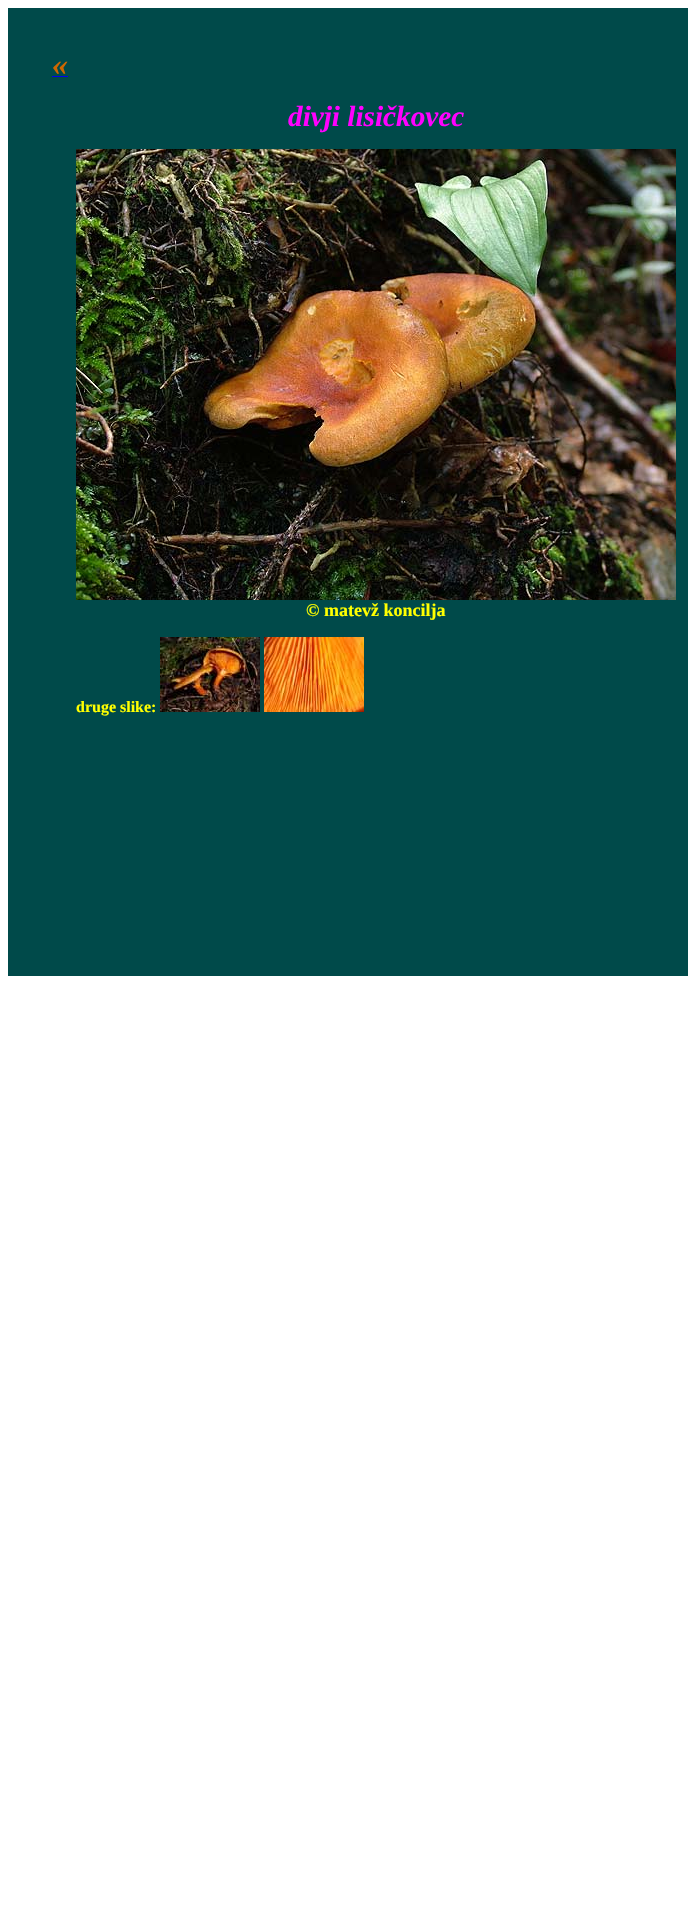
static SkFont makeFont(const char* family, int weight, float size, bool italic = false) {
  SkFontStyle style(weight, SkFontStyle::kNormal_Width,
    italic ? SkFontStyle::kItalic_Slant : SkFontStyle::kUpright_Slant);
  SkFont result(fontMgr->matchFamilyStyle(family, style), size);
  result.setSubpixel(true);
  return result;
}

static void text(SkCanvas* c, const char* s, float x, float y, const SkFont& font, SkColor color) {
  SkPaint ink(SkColor4f::FromColor(color));
  ink.setAntiAlias(true);
  c->drawString(s, x, y, font, ink);
}

static void box(SkCanvas* c, float l, float t, float r, float b, SkColor color) {
  SkPaint ink(SkColor4f::FromColor(color));
  ink.setAntiAlias(true);
  c->drawRect(SkRect::MakeLTRB(l, t, r, b), ink);
}

static void picture(SkCanvas* c, const char* path, float l, float t, float r, float b) {
  auto image = SkImages::DeferredFromEncodedData(SkData::MakeFromFileName(path));
  c->drawImageRect(image, SkRect::MakeLTRB(l, t, r, b), SkSamplingOptions());
}

void draw(SkCanvas* c) {
  SkPaint paint;
  paint.setAntiAlias(true);
  c->clear(0xffffffff);
  box(c, 8, 8, 688, 145, 0xff004a4a);
  SkFont face1 = makeFont("Liberation Serif", 700, 32, true);
  text(c, "«", 52, 75, face1, 0xffce6700);
  box(c, 52, 76, 68, 77, 0xff0000ee);
  SkFont face2 = makeFont("Liberation Serif", 700, 29.25f, true);
  text(c, "divji lisičkovec", 288, 126, face2, 0xffff00ff);
  box(c, 8, 145, 688, 976, 0xff004a4a);
  picture(c, "img_01.png", 76, 149, 676, 600);
  SkFont face3 = makeFont("Liberation Serif", 700, 18);
  text(c, "© matevž koncilja", 306, 616, face3, 0xffffff00);
  SkFont face4 = makeFont("Liberation Serif", 700, 16);
  text(c, "druge slike:", 76, 712, face4, 0xffffff00);
  picture(c, "img_02.png", 160, 637, 260, 712);
  picture(c, "img_03.png", 264, 637, 364, 712);
}
